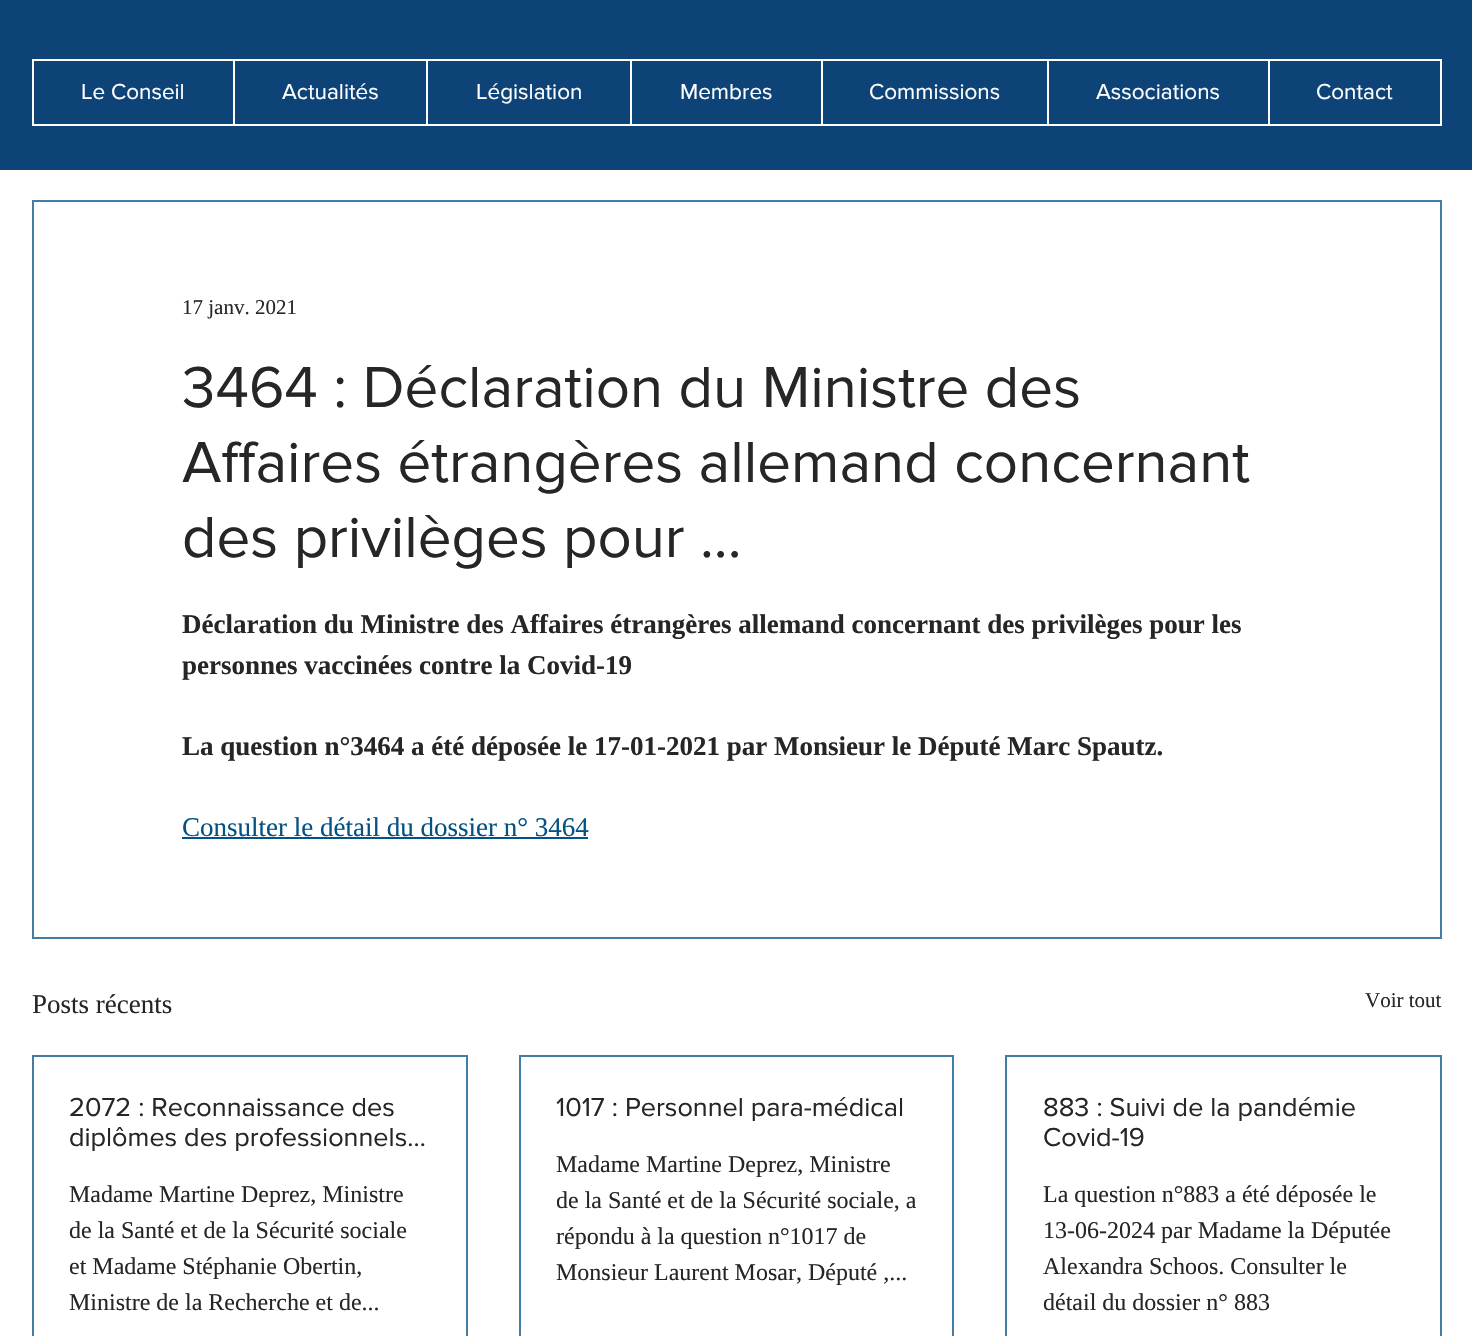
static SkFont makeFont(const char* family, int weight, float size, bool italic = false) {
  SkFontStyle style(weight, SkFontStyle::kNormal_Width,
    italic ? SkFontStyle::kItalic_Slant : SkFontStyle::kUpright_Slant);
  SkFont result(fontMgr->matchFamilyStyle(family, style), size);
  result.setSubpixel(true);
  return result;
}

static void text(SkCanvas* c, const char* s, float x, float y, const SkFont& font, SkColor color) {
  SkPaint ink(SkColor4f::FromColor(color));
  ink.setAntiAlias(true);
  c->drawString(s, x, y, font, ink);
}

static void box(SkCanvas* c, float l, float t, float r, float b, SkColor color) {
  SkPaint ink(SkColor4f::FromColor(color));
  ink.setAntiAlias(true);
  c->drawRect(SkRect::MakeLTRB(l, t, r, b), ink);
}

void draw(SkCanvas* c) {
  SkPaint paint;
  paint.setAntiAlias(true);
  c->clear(0xffffffff);
  box(c, 0, 0, 1472, 170, 0xff0e4378);
  paint.setStyle(SkPaint::kStroke_Style);
  paint.setStrokeWidth(2);
  paint.setColor(0xffffffff);
  c->drawRect(SkRect::MakeLTRB(33, 60, 1441, 125), paint);
  SkFont face1 = makeFont("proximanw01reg", 400, 22.5f);
  text(c, "Le Conseil", 81, 99, face1, 0xffffffff);
  box(c, 233, 60, 235, 125, 0xffffffff);
  text(c, "Actualités", 282, 99, face1, 0xffffffff);
  box(c, 426, 60, 428, 125, 0xffffffff);
  text(c, "Législation", 476, 99, face1, 0xffffffff);
  box(c, 630, 60, 632, 125, 0xffffffff);
  text(c, "Membres", 680, 99, face1, 0xffffffff);
  box(c, 821, 60, 823, 125, 0xffffffff);
  text(c, "Commissions", 869, 99, face1, 0xffffffff);
  box(c, 1047, 60, 1049, 125, 0xffffffff);
  text(c, "Associations", 1096, 99, face1, 0xffffffff);
  box(c, 1268, 60, 1270, 125, 0xffffffff);
  text(c, "Contact", 1316, 99, face1, 0xffffffff);
  paint.setColor(0xff437da3);
  c->drawRect(SkRect::MakeLTRB(33, 201, 1441, 938), paint);
  SkFont face2 = makeFont("Liberation Serif", 400, 21);
  text(c, "17 janv. 2021", 182, 314, face2, 0xff272624);
  SkFont face3 = makeFont("proximanw01reg", 400, 60);
  text(c, "3464 : Déclaration du Ministre des", 182, 407, face3, 0xff272624);
  text(c, "Affaires étrangères allemand concernant", 182, 482, face3, 0xff272624);
  text(c, "des privilèges pour ...", 182, 557, face3, 0xff272624);
  SkFont face4 = makeFont("Liberation Serif", 700, 27);
  text(c, "Déclaration du Ministre des Affaires étrangères allemand concernant des privilèges pour les", 182, 633, face4, 0xff272624);
  text(c, "personnes vaccinées contre la Covid-19", 182, 674, face4, 0xff272624);
  text(c, "La question n°3464 a été déposée le 17-01-2021 par Monsieur le Député Marc Spautz.", 182, 755, face4, 0xff272624);
  SkFont face5 = makeFont("Liberation Serif", 400, 27);
  text(c, "Consulter le détail du dossier n° 3464", 182, 836, face5, 0xff045184);
  box(c, 182, 837, 588, 839, 0xff045184);
  text(c, "Posts récents", 32, 1013, face5, 0xff272624);
  text(c, "Voir tout", 1365, 1007, face2, 0xff272624);
  c->drawRect(SkRect::MakeLTRB(33, 1056, 467, 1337), paint);
  SkFont face6 = makeFont("proximanw01reg", 400, 27);
  text(c, "2072 : Reconnaissance des", 69, 1116, face6, 0xff272624);
  text(c, "diplômes des professionnels…", 69, 1146, face6, 0xff272624);
  SkFont face7 = makeFont("Liberation Serif", 400, 24);
  text(c, "Madame Martine Deprez, Ministre", 69, 1202, face7, 0xff272624);
  text(c, "de la Santé et de la Sécurité sociale", 69, 1238, face7, 0xff272624);
  text(c, "et Madame Stéphanie Obertin,", 69, 1274, face7, 0xff272624);
  text(c, "Ministre de la Recherche et de...", 69, 1310, face7, 0xff272624);
  c->drawRect(SkRect::MakeLTRB(520, 1056, 953, 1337), paint);
  text(c, "1017 : Personnel para-médical", 556, 1116, face6, 0xff272624);
  text(c, "Madame Martine Deprez, Ministre", 556, 1172, face7, 0xff272624);
  c->save();
  c->clipRect(SkRect::MakeLTRB(557, 1146, 917, 1290));
  text(c, "de la Santé et de la Sécurité sociale, a", 556, 1208, face7, 0xff272624);
  c->restore();
  text(c, "répondu à la question n°1017 de", 556, 1244, face7, 0xff272624);
  text(c, "Monsieur Laurent Mosar, Député ,...", 556, 1280, face7, 0xff272624);
  c->drawRect(SkRect::MakeLTRB(1006, 1056, 1441, 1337), paint);
  text(c, "883 : Suivi de la pandémie", 1043, 1116, face6, 0xff272624);
  text(c, "Covid-19", 1043, 1146, face6, 0xff272624);
  text(c, "La question n°883 a été déposée le", 1043, 1202, face7, 0xff272624);
  text(c, "13-06-2024 par Madame la Députée", 1043, 1238, face7, 0xff272624);
  text(c, "Alexandra Schoos. Consulter le", 1043, 1274, face7, 0xff272624);
  text(c, "détail du dossier n° 883", 1043, 1310, face7, 0xff272624);
}
